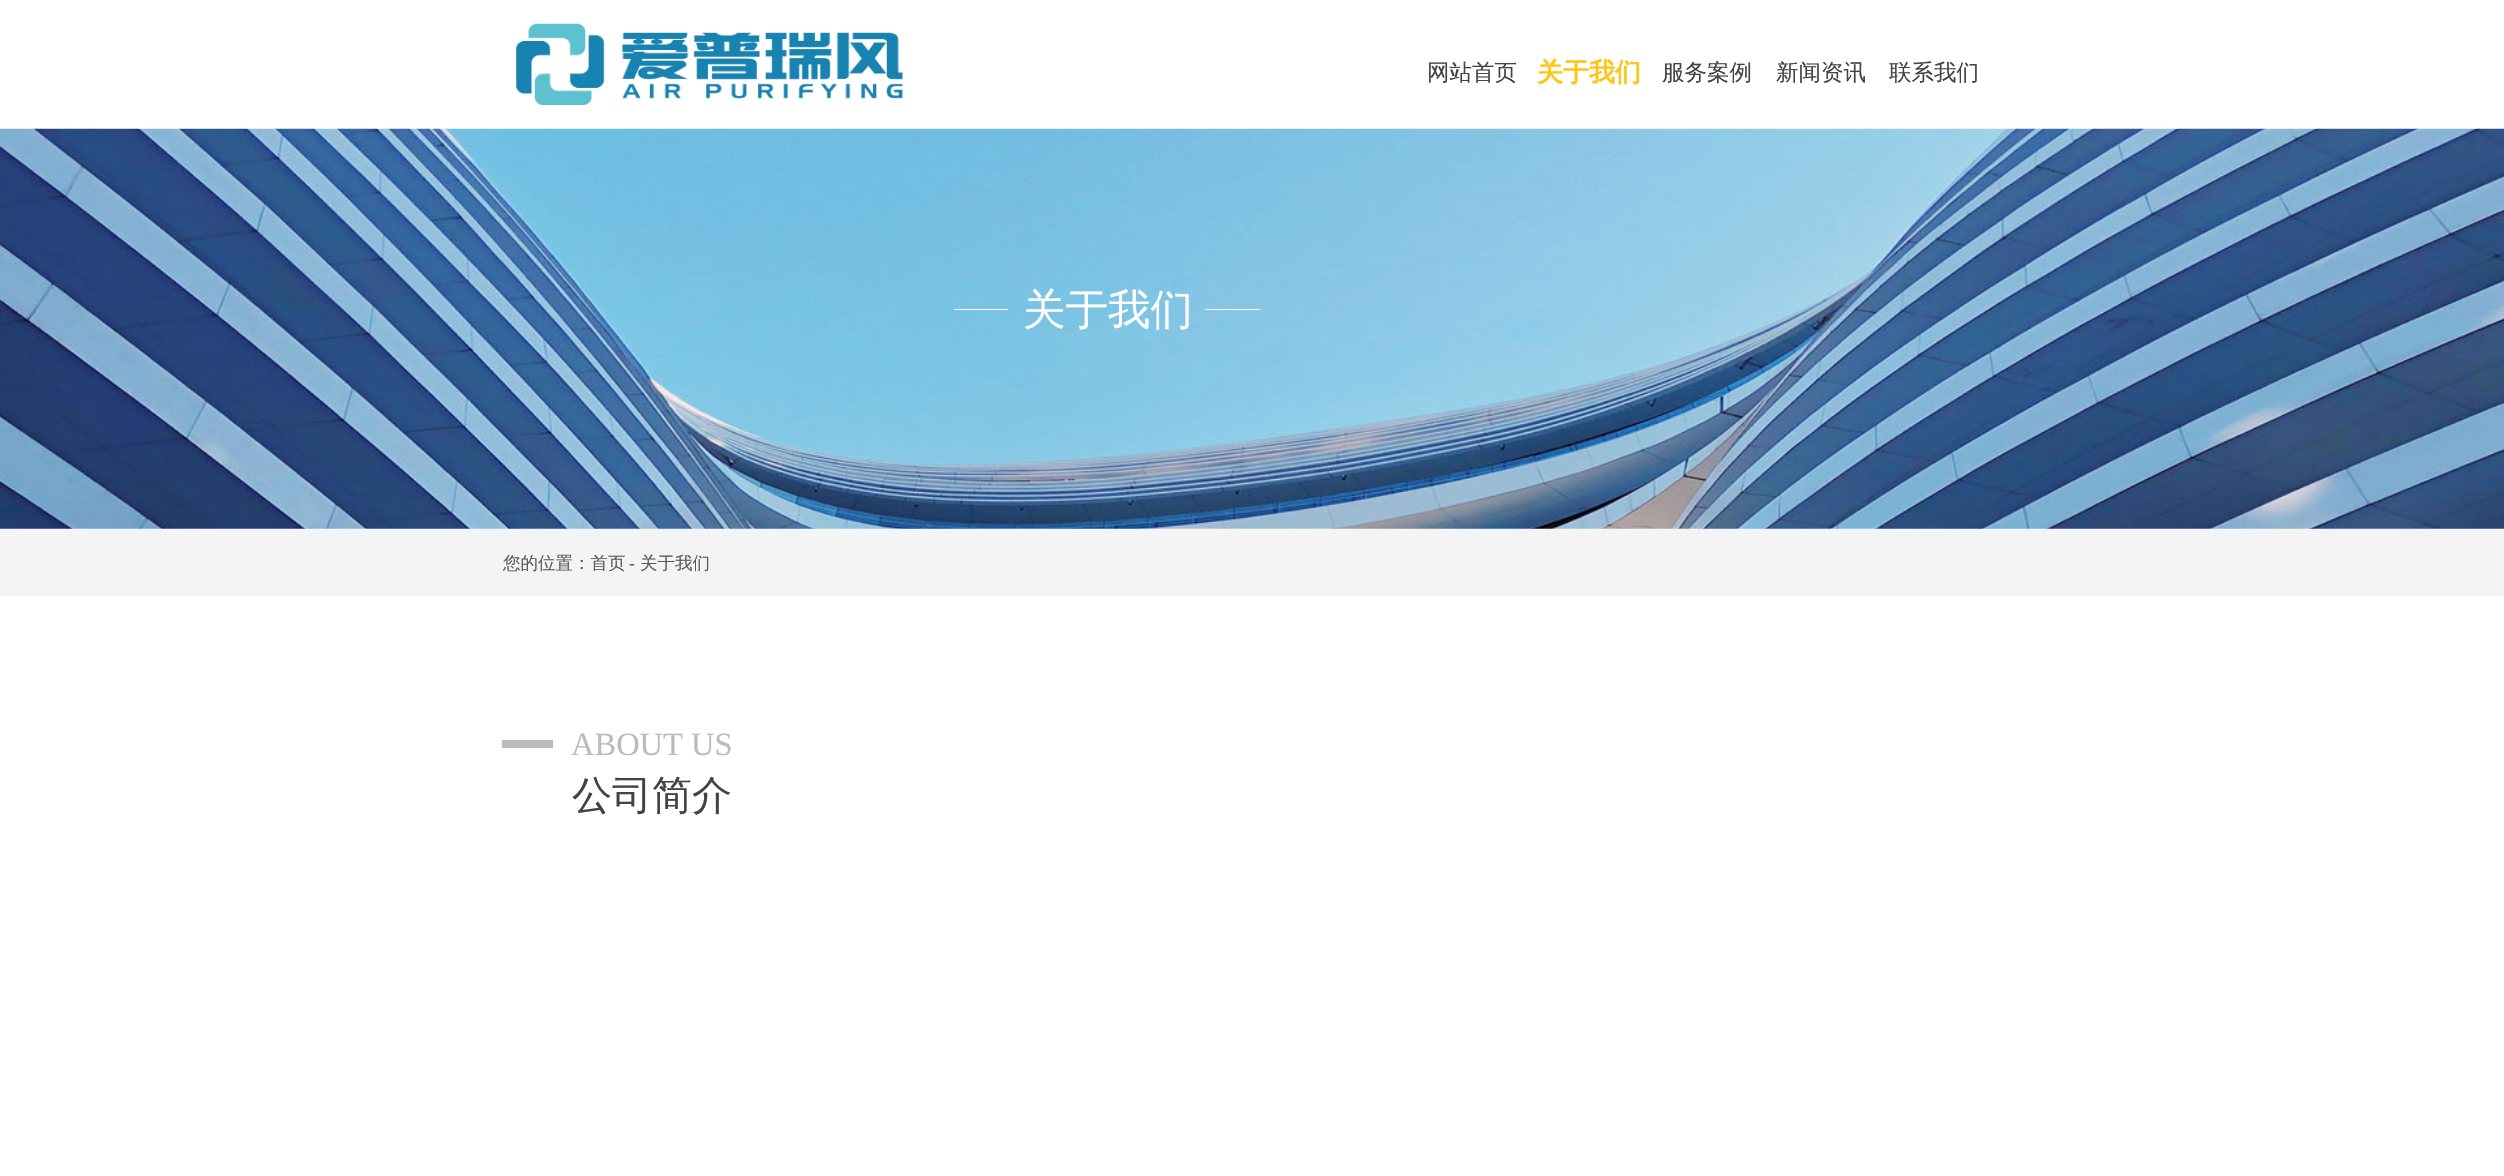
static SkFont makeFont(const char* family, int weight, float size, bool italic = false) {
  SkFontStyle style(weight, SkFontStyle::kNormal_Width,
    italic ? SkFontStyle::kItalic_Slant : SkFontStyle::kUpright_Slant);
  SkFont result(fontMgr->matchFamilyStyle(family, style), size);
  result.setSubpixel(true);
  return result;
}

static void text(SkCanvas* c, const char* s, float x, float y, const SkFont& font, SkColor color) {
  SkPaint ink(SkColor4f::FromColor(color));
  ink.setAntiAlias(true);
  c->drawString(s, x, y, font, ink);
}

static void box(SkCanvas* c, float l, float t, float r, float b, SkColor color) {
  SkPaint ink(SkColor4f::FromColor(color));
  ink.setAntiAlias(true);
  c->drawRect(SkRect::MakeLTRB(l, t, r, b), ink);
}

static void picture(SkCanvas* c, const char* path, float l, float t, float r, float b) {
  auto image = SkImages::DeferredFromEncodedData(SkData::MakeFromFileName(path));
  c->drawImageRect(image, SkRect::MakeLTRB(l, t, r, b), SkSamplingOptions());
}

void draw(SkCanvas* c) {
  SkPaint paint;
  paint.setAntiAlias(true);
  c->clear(0xffffffff);
  picture(c, "img_01.png", 516, 23, 903, 105);
  SkFont face1 = makeFont("WenQuanYi Zen Hei", 500, 22.5f);
  text(c, "网站首页", 1427, 80, face1, 0xff434343);
  SkFont face2 = makeFont("WenQuanYi Zen Hei", 700, 26);
  text(c, "关于我们", 1537, 81, face2, 0xfffec518);
  text(c, "服务案例", 1662, 80, face1, 0xff434343);
  text(c, "新闻资讯", 1776, 80, face1, 0xff434343);
  text(c, "联系我们", 1889, 80, face1, 0xff434343);
  picture(c, "img_02.png", 0, 128, 2504, 529);
  box(c, 954, 309, 1008, 310, 0xffffffff);
  SkFont face3 = makeFont("WenQuanYi Zen Hei", 500, 42.5f);
  text(c, "关于我们", 1023, 324, face3, 0xffffffff);
  box(c, 1205, 309, 1260, 310, 0xffffffff);
  box(c, 0, 529, 2504, 596, 0xfff4f4f4);
  SkFont face4 = makeFont("WenQuanYi Zen Hei", 500, 17.5f);
  text(c, "您的位置：首页", 503, 569, face4, 0xff5a5a5a);
  SkFont face5 = makeFont("Liberation Serif", 400, 17.5f);
  text(c, "-", 629, 569, face5, 0xff5a5a5a);
  text(c, "关于我们", 640, 569, face4, 0xff5a5a5a);
  box(c, 502, 740, 553, 748, 0xffbbbbbb);
  SkFont face6 = makeFont("Liberation Serif", 400, 32.5f);
  text(c, "ABOUT US", 571, 755, face6, 0xffbbbbbb);
  SkFont face7 = makeFont("WenQuanYi Zen Hei", 500, 40);
  text(c, "公司简介", 572, 809, face7, 0xff434343);
}
